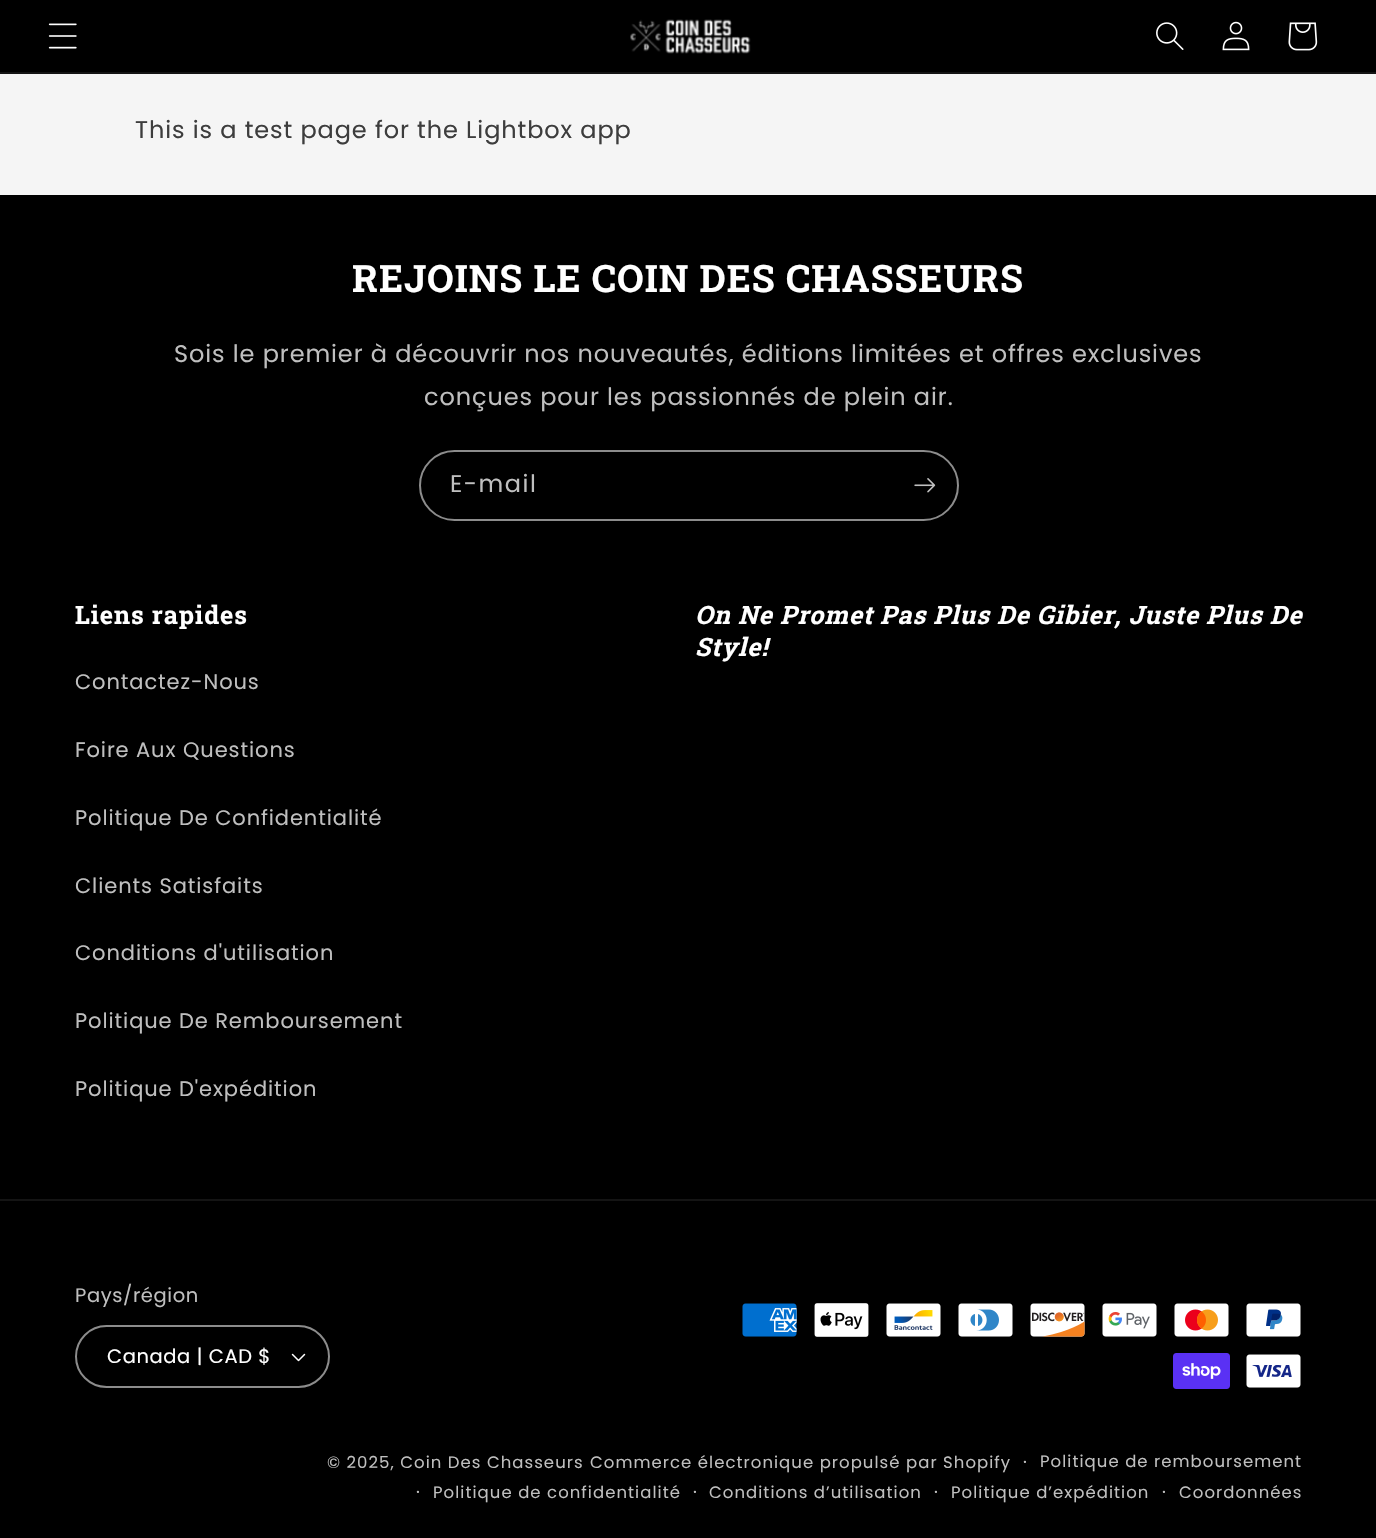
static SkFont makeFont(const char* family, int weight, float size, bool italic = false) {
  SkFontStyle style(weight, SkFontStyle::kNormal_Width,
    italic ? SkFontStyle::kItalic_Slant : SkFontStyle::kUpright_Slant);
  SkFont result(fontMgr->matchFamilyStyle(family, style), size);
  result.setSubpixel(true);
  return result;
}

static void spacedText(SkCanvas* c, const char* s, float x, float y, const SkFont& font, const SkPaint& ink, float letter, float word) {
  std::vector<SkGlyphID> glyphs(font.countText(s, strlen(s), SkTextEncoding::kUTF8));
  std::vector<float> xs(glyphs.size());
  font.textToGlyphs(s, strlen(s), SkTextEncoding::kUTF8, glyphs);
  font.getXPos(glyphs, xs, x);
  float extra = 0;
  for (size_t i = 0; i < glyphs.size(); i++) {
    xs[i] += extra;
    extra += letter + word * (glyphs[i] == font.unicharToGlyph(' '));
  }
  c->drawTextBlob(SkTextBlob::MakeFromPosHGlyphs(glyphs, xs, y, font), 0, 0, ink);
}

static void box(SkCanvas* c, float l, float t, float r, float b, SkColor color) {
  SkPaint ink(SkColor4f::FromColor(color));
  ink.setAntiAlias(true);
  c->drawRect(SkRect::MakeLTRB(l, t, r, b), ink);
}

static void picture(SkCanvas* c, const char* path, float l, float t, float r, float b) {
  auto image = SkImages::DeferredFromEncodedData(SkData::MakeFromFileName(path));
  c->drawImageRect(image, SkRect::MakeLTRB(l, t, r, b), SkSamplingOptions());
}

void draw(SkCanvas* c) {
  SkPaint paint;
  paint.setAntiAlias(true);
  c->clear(0xfff5f5f5);
  box(c, 0, 0, 1376, 72, 0xff000000);
  box(c, 0, 72, 1376, 74, 0xff141414);
  picture(c, "img_01.png", 48, 23, 77, 49);
  picture(c, "img_02.png", 630, 19, 751, 54);
  picture(c, "img_03.png", 1156, 22, 1184, 50);
  picture(c, "img_04.png", 1222, 21, 1250, 51);
  picture(c, "img_05.png", 1288, 22, 1318, 51);
  SkFont face1 = makeFont("Poppins", 400, 24);
  paint.setColor(0xff3d3d3d);
  spacedText(c, "This is a test page for the Lightbox app", 135, 138, face1, paint, 0.9f, 0);
  box(c, 0, 195, 1376, 1538, 0xff000000);
  SkFont face2 = makeFont("Roboto Slab", 700, 37.75f);
  paint.setColor(0xffffffff);
  spacedText(c, "REJOINS LE COIN DES CHASSEURS", 352, 292, face2, paint, 0.95f, 0);
  paint.setColor(0xffbfbfbf);
  spacedText(c, "Sois le premier à découvrir nos nouveautés, éditions limitées et offres exclusives", 174, 362, face1, paint, 0.9f, 0);
  spacedText(c, "conçues pour les passionnés de plein air.", 424, 405, face1, paint, 0.9f, 0);
  paint.setStyle(SkPaint::kStroke_Style);
  paint.setStrokeWidth(2);
  paint.setColor(0xff8c8c8c);
  c->drawRoundRect(SkRect::MakeLTRB(420, 451, 958, 520), 34.5f, 34.5f, paint);
  paint.setStyle(SkPaint::kFill_Style);
  paint.setColor(0xffbfbfbf);
  spacedText(c, "E-mail", 450, 492, face1, paint, 1.5f, 0);
  picture(c, "img_06.png", 914, 478, 936, 493);
  SkFont face3 = makeFont("Roboto Slab", 700, 25.2f);
  paint.setColor(0xffffffff);
  spacedText(c, "Liens rapides", 75, 624, face3, paint, 0.95f, 0);
  SkFont face4 = makeFont("Poppins", 400, 21);
  paint.setColor(0xffbfbfbf);
  spacedText(c, "Contactez-Nous", 75, 689, face4, paint, 0.9f, 0);
  spacedText(c, "Foire Aux Questions", 75, 757, face4, paint, 0.9f, 0);
  spacedText(c, "Politique De Confidentialité", 75, 825, face4, paint, 0.9f, 0);
  spacedText(c, "Clients Satisfaits", 75, 893, face4, paint, 0.9f, 0);
  spacedText(c, "Conditions d'utilisation", 75, 960, face4, paint, 0.9f, 0);
  spacedText(c, "Politique De Remboursement", 75, 1028, face4, paint, 0.9f, 0);
  spacedText(c, "Politique D'expédition", 75, 1096, face4, paint, 0.9f, 0);
  SkFont face5 = makeFont("Roboto Slab", 700, 25.2f, true);
  paint.setColor(0xffffffff);
  spacedText(c, "On Ne Promet Pas Plus De Gibier, Juste Plus De", 695, 624, face5, paint, 0.95f, 0);
  spacedText(c, "Style!", 695, 656, face5, paint, 0.95f, 0);
  box(c, 0, 1199, 1376, 1201, 0xff141414);
  SkFont face6 = makeFont("Poppins", 400, 19.5f);
  paint.setColor(0xffbfbfbf);
  spacedText(c, "Pays/région", 75, 1302, face6, paint, 0.6f, 0);
  picture(c, "img_07.png", 291, 1353, 306, 1362);
  paint.setStyle(SkPaint::kStroke_Style);
  paint.setColor(0xff8c8c8c);
  c->drawRoundRect(SkRect::MakeLTRB(76, 1326, 329, 1387), 30.5f, 30.5f, paint);
  paint.setStyle(SkPaint::kFill_Style);
  paint.setColor(0xffffffff);
  spacedText(c, "Canada | CAD $", 107, 1363, face6, paint, 0.6f, 0);
  picture(c, "img_08.png", 742, 1303, 797, 1337);
  picture(c, "img_09.png", 814, 1303, 869, 1337);
  picture(c, "img_10.png", 886, 1303, 941, 1337);
  picture(c, "img_11.png", 958, 1303, 1013, 1337);
  picture(c, "img_12.png", 1030, 1303, 1085, 1337);
  picture(c, "img_13.png", 1102, 1303, 1157, 1337);
  picture(c, "img_14.png", 1174, 1303, 1229, 1337);
  picture(c, "img_15.png", 1246, 1303, 1301, 1337);
  picture(c, "img_16.png", 1173, 1353, 1230, 1389);
  picture(c, "img_17.png", 1246, 1354, 1301, 1388);
  SkFont face7 = makeFont("Poppins", 400, 18);
  paint.setColor(0xffbfbfbf);
  spacedText(c, "·", 1023, 1468, face7, paint, 1.05f, 0);
  SkFont face8 = makeFont("Poppins", 400, 16.5f);
  spacedText(c, "Politique de remboursement", 1040, 1467, face8, paint, 1.05f, 0);
  spacedText(c, "·", 416, 1498, face7, paint, 1.05f, 0);
  spacedText(c, "Politique de confidentialité", 433, 1498, face8, paint, 1.05f, 0);
  spacedText(c, "·", 693, 1498, face7, paint, 1.05f, 0);
  spacedText(c, "Conditions d’utilisation", 709, 1498, face8, paint, 1.05f, 0);
  spacedText(c, "·", 934, 1498, face7, paint, 1.05f, 0);
  spacedText(c, "Politique d’expédition", 951, 1498, face8, paint, 1.05f, 0);
  spacedText(c, "·", 1162, 1498, face7, paint, 1.05f, 0);
  spacedText(c, "Coordonnées", 1179, 1498, face8, paint, 1.05f, 0);
  spacedText(c, "© 2025, Coin Des Chasseurs", 327, 1468, face8, paint, 1.05f, 0);
  spacedText(c, "Commerce électronique propulsé par Shopify", 590, 1468, face8, paint, 1.05f, 0);
}
